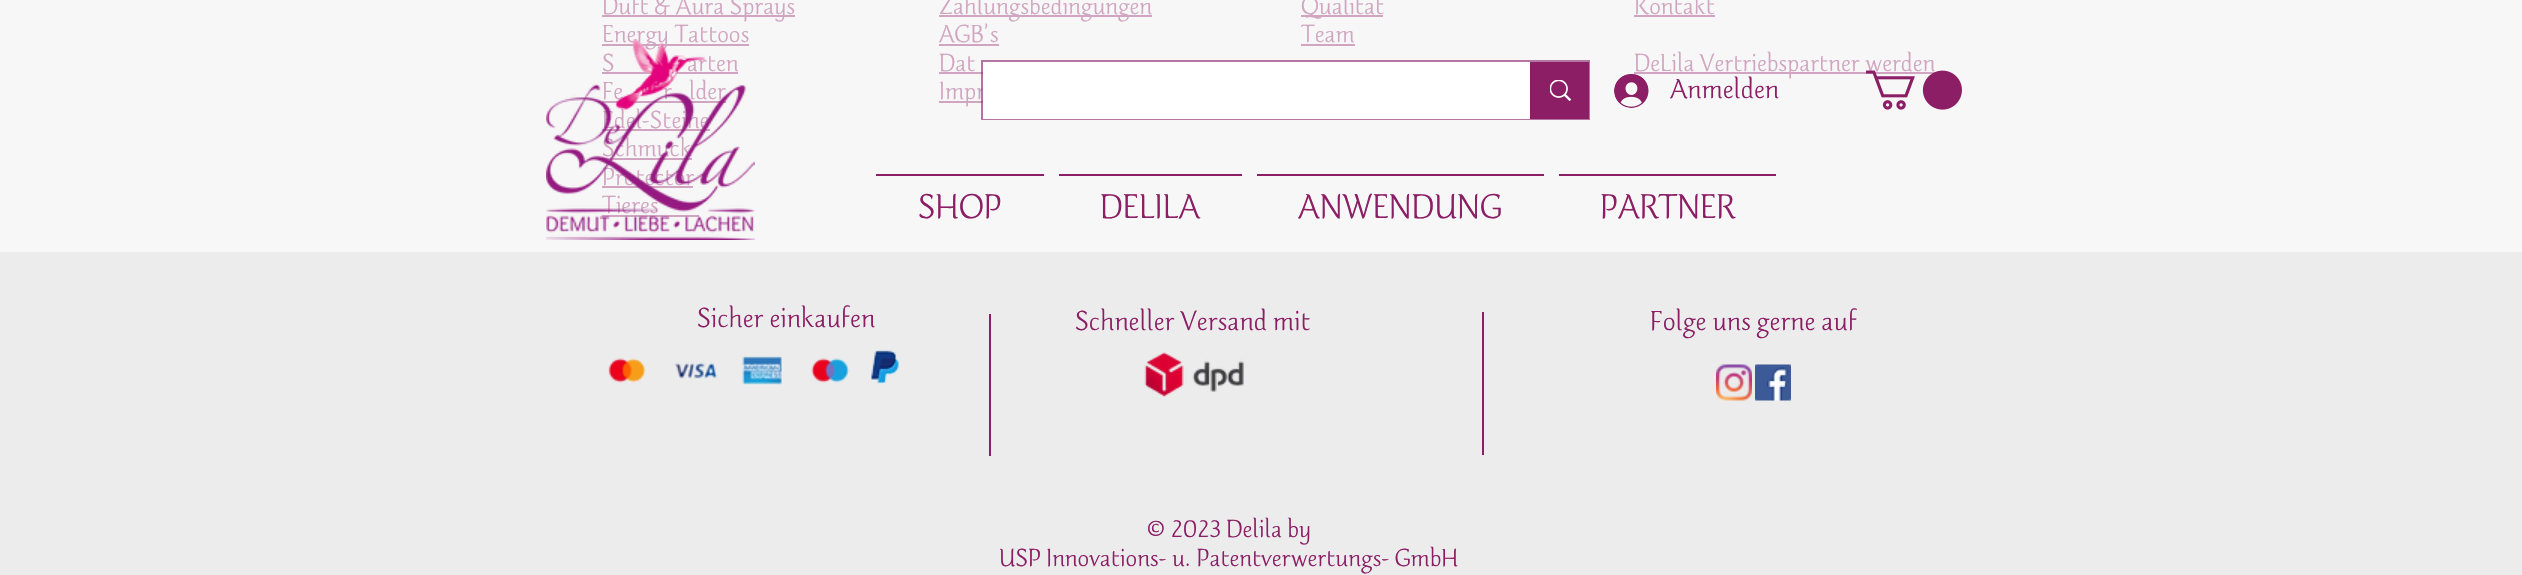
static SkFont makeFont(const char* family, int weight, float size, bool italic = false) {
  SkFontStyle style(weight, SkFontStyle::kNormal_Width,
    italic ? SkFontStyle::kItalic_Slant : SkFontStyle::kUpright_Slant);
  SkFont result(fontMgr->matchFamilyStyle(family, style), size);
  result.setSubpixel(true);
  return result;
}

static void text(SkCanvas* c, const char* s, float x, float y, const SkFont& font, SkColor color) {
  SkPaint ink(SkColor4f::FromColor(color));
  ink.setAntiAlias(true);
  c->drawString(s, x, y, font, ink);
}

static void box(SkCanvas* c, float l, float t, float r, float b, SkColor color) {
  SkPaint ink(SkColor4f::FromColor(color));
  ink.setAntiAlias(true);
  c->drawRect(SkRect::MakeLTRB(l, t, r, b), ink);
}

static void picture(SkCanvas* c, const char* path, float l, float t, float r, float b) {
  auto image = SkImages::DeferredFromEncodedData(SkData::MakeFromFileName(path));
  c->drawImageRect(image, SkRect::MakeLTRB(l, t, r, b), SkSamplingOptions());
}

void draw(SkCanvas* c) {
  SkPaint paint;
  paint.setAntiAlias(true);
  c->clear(0xffececec);
  box(c, 0, 0, 2522, 252, 0xfff7f7f7);
  box(c, 602, 15, 795, 17, 0xffd1a5c1);
  SkFont face1 = makeFont("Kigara", 400, 27);
  text(c, "Duft & Aura Sprays", 602, 14, face1, 0xffd1a5c1);
  box(c, 602, 44, 749, 46, 0xffd1a5c1);
  text(c, "Energy Tattoos", 602, 42, face1, 0xffd1a5c1);
  text(c, "S", 602, 71, face1, 0xffd1a5c1);
  text(c, "arten", 687, 71, face1, 0xffd1a5c1);
  box(c, 602, 72, 738, 74, 0xffd1a5c1);
  text(c, "Fe", 602, 99, face1, 0xffd1a5c1);
  text(c, "r", 663, 99, face1, 0xffd1a5c1);
  box(c, 602, 101, 726, 103, 0xffd1a5c1);
  text(c, "lder", 689, 99, face1, 0xffd1a5c1);
  text(c, "Edel-Steine", 602, 128, face1, 0xffd1a5c1);
  box(c, 602, 129, 710, 131, 0xffd1a5c1);
  text(c, "Schmuck", 602, 156, face1, 0xffd1a5c1);
  box(c, 602, 158, 692, 160, 0xffd1a5c1);
  text(c, "Protector", 602, 185, face1, 0xffd1a5c1);
  box(c, 602, 186, 693, 188, 0xffd1a5c1);
  text(c, "Tieres", 602, 213, face1, 0xffd1a5c1);
  box(c, 602, 215, 699, 217, 0xffd1a5c1);
  box(c, 939, 15, 1152, 17, 0xffd1a5c1);
  text(c, "Zahlungsbedingungen", 939, 14, face1, 0xffd1a5c1);
  text(c, "AGB's", 939, 42, face1, 0xffd1a5c1);
  box(c, 939, 44, 999, 46, 0xffd1a5c1);
  text(c, "Dat", 939, 71, face1, 0xffd1a5c1);
  box(c, 939, 72, 983, 74, 0xffd1a5c1);
  box(c, 939, 101, 983, 103, 0xffd1a5c1);
  text(c, "Impr", 939, 99, face1, 0xffd1a5c1);
  box(c, 1301, 15, 1383, 17, 0xffd1a5c1);
  text(c, "Qualität", 1301, 14, face1, 0xffd1a5c1);
  text(c, "Team", 1301, 42, face1, 0xffd1a5c1);
  box(c, 1301, 44, 1355, 46, 0xffd1a5c1);
  text(c, "Kontakt", 1634, 14, face1, 0xffd1a5c1);
  box(c, 1634, 15, 1715, 17, 0xffd1a5c1);
  box(c, 1634, 72, 1935, 74, 0xffd1a5c1);
  text(c, "DeLila Vertriebspartner werden", 1634, 71, face1, 0xffd1a5c1);
  SkFont face2 = makeFont("Kigara", 400, 30);
  text(c, "Sicher einkaufen", 697, 327, face2, 0xff8b1e65);
  picture(c, "img_01.png", 871, 350, 899, 385);
  box(c, 989, 314, 991, 456, 0xff8b1e65);
  text(c, "Schneller Versand mit", 1075, 330, face2, 0xff8b1e65);
  box(c, 1482, 312, 1484, 455, 0xff8b1e65);
  text(c, "Folge uns gerne auf", 1650, 330, face2, 0xff8b1e65);
  picture(c, "img_02.png", 608, 356, 850, 385);
  picture(c, "img_03.png", 1144, 352, 1244, 397);
  picture(c, "img_04.png", 1716, 364, 1752, 401);
  picture(c, "img_05.png", 1755, 364, 1791, 401);
  text(c, "© 2023 Delila by", 1146, 537, face1, 0xff8b1e65);
  text(c, "USP Innovations- u. Patentverwertungs- GmbH", 999, 566, face1, 0xff8b1e65);
  picture(c, "img_06.png", 546, 39, 755, 240);
  paint.setStyle(SkPaint::kStroke_Style);
  paint.setStrokeWidth(2);
  paint.setColor(0x998b1e65);
  c->drawRect(SkRect::MakeLTRB(982, 61, 1589, 119), paint);
  box(c, 983, 62, 1530, 119, 0xffffffff);
  box(c, 1530, 62, 1589, 119, 0xff8b1e65);
  picture(c, "img_07.png", 1550, 80, 1571, 101);
  picture(c, "img_08.png", 1614, 74, 1649, 108);
  text(c, "Anmelden", 1670, 98, face2, 0xff8b1e65);
  picture(c, "img_09.png", 1866, 70, 1962, 110);
  box(c, 876, 174, 1044, 176, 0xff8b1e65);
  SkFont face3 = makeFont("Kigara", 400, 37.5f);
  text(c, "SHOP", 918, 218, face3, 0xff8b1e65);
  box(c, 1059, 174, 1242, 176, 0xff8b1e65);
  text(c, "DELILA", 1100, 218, face3, 0xff8b1e65);
  box(c, 1257, 174, 1544, 176, 0xff8b1e65);
  text(c, "ANWENDUNG", 1298, 218, face3, 0xff8b1e65);
  box(c, 1559, 174, 1776, 176, 0xff8b1e65);
  text(c, "PARTNER", 1600, 218, face3, 0xff8b1e65);
}
